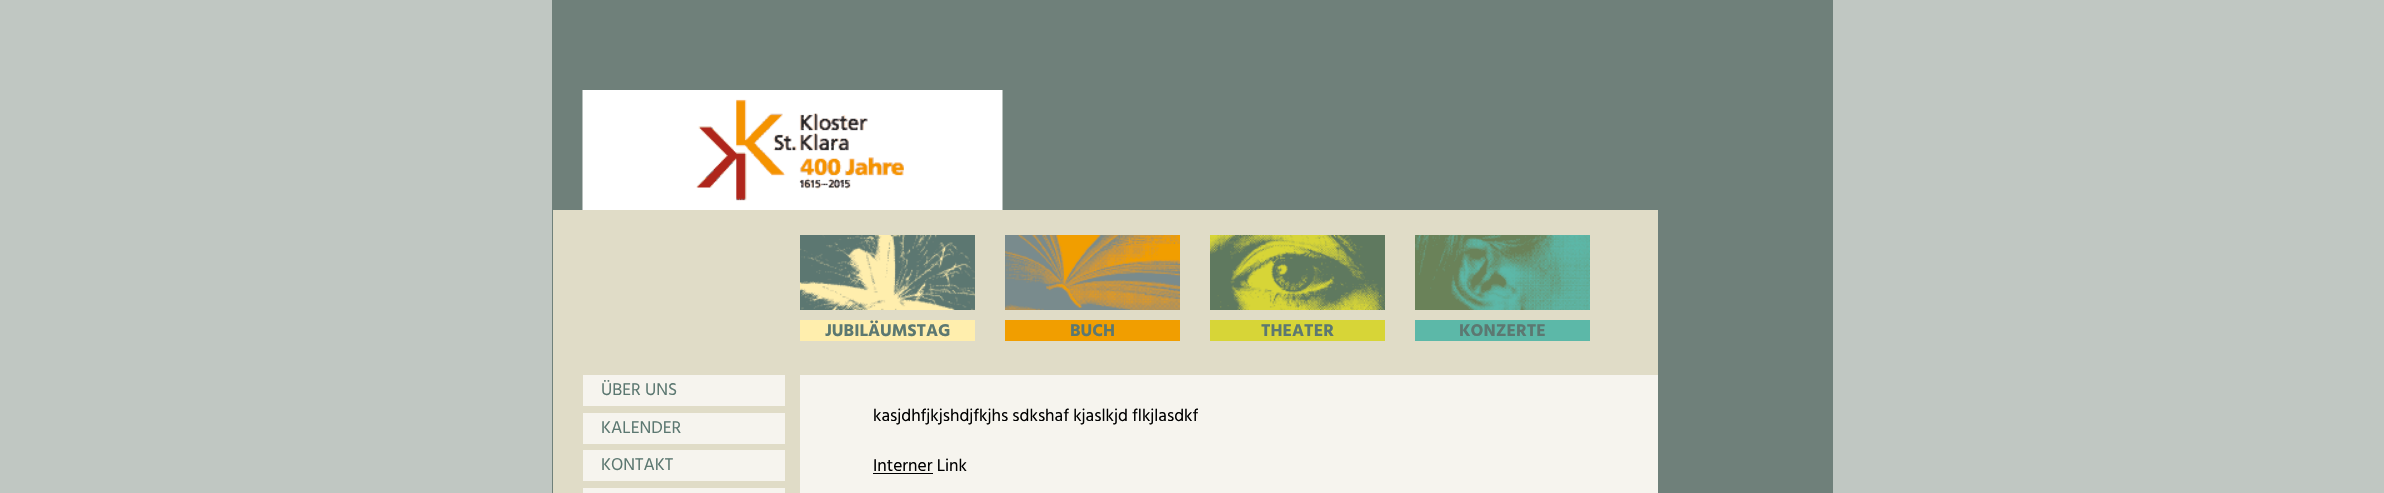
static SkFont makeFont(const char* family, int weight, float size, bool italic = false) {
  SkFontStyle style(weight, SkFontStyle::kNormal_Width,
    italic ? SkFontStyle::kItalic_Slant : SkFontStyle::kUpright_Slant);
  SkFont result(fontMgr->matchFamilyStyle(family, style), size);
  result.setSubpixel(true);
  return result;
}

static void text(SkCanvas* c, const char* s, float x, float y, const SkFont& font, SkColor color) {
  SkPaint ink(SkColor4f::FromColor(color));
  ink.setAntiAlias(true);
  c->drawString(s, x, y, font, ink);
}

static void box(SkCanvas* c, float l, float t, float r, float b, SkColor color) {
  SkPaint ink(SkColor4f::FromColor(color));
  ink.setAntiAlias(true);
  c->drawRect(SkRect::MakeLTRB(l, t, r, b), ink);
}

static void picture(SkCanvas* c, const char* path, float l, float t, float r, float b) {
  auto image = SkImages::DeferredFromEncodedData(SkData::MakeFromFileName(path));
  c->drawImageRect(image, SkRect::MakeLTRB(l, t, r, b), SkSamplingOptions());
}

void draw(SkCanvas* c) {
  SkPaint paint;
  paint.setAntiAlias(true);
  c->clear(0xffc0c7c2);
  box(c, 552, 0, 1833, 493, 0xff6f807a);
  picture(c, "img_01.png", 582, 90, 1003, 210);
  box(c, 553, 210, 1658, 493, 0xffe0dcc7);
  picture(c, "img_02.png", 800, 235, 975, 310);
  box(c, 800, 320, 975, 341, 0xffffeead);
  SkFont face1 = makeFont("Hind", 700, 17.5f);
  text(c, "JUBILÄUMSTAG", 825, 336, face1, 0xff5c7871);
  picture(c, "img_03.png", 1005, 235, 1180, 310);
  box(c, 1005, 320, 1180, 341, 0xfff19e00);
  text(c, "BUCH", 1070, 336, face1, 0xff5c7871);
  picture(c, "img_04.png", 1210, 235, 1385, 310);
  box(c, 1210, 320, 1385, 341, 0xffd7d537);
  text(c, "THEATER", 1261, 336, face1, 0xff5c7871);
  picture(c, "img_05.png", 1415, 235, 1590, 310);
  box(c, 1415, 320, 1590, 341, 0xff5cb8a8);
  text(c, "KONZERTE", 1459, 336, face1, 0xff5c7871);
  box(c, 583, 375, 785, 406, 0xfff6f4ee);
  SkFont face2 = makeFont("Hind", 400, 17.5f);
  text(c, "ÜBER UNS", 601, 395, face2, 0xff5c7871);
  box(c, 583, 413, 785, 444, 0xfff6f4ee);
  text(c, "KALENDER", 601, 433, face2, 0xff5c7871);
  box(c, 583, 450, 785, 481, 0xfff6f4ee);
  text(c, "KONTAKT", 601, 470, face2, 0xff5c7871);
  box(c, 583, 488, 785, 493, 0xfff6f4ee);
  box(c, 800, 375, 1658, 493, 0xfff6f4ee);
  text(c, "kasjdhfjkjshdjfkjhs sdkshaf kjaslkjd flkjlasdkf", 873, 421, face2, 0xff000000);
  text(c, "Interner Link", 873, 471, face2, 0xff000000);
  box(c, 873, 473, 933, 474, 0xff000000);
}
